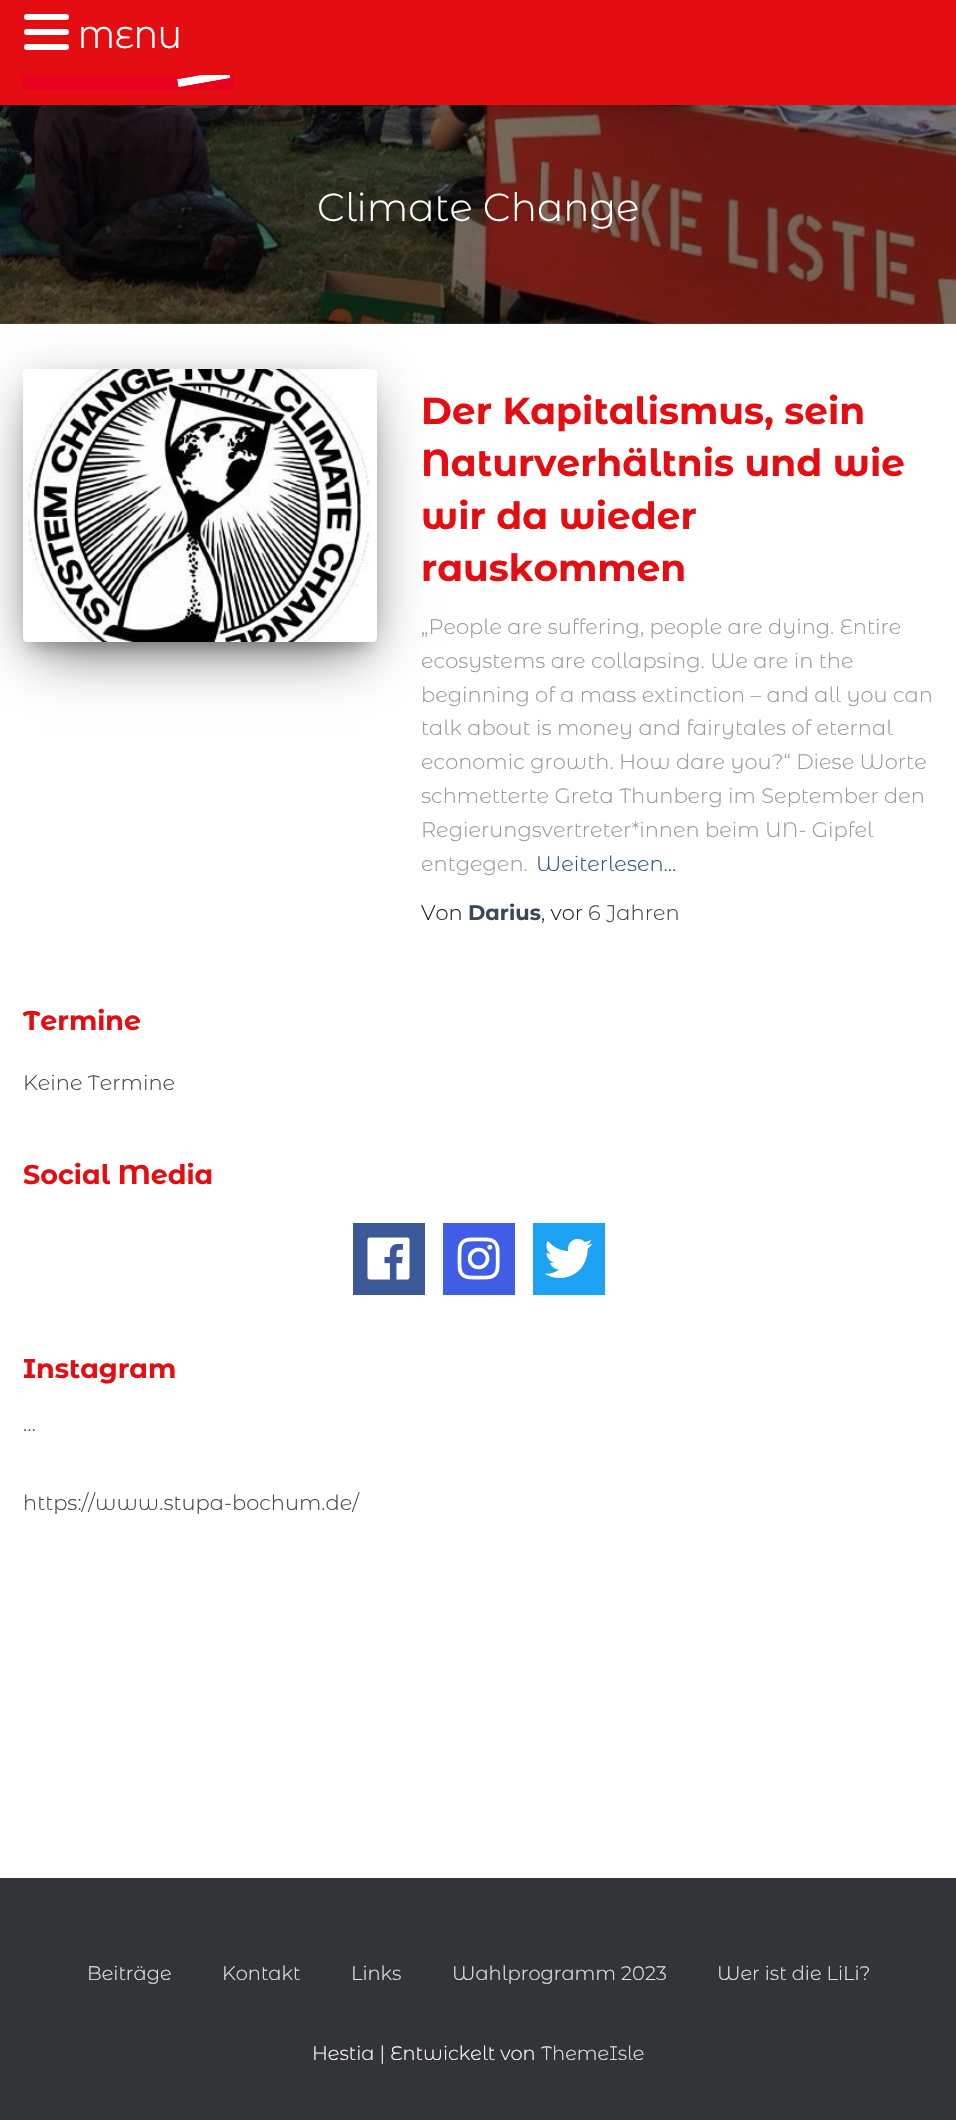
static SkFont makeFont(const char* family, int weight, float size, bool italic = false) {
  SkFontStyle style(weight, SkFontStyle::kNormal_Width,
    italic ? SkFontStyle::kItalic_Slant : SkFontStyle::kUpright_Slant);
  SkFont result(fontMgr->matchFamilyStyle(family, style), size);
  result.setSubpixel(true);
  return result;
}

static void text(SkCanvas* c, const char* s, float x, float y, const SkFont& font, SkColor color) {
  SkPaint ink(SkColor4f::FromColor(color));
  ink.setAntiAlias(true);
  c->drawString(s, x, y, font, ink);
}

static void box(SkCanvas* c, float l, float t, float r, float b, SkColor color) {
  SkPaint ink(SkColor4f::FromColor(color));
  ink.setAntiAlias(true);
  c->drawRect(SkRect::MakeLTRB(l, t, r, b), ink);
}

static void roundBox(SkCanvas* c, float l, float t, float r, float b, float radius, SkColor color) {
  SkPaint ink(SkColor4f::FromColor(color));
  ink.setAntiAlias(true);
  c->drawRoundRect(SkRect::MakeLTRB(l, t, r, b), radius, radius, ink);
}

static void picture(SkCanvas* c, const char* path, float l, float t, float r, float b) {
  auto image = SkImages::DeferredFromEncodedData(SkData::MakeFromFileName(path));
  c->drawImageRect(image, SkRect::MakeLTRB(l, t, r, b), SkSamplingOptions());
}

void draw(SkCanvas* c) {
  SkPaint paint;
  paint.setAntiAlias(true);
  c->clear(0xffffffff);
  picture(c, "img_02.png", 0, 105, 956, 324);
  paint.setColor(0x26000000);
  paint.setMaskFilter(SkMaskFilter::MakeBlur(kNormal_SkBlurStyle, 7.5f));
  c->drawRect(SkRect::MakeLTRB(6, 15, 951, 108), paint);
  paint.setMaskFilter(nullptr);
  box(c, 0, 0, 956, 105, 0xffe30d12);
  roundBox(c, 24, 14, 69, 20, 3, 0xffffffff);
  roundBox(c, 24, 29, 69, 35, 3, 0xffffffff);
  roundBox(c, 24, 44, 69, 50, 3, 0xffffffff);
  SkFont face1 = makeFont("Montserrat Alternates", 400, 30);
  text(c, "MENU", 78, 48, face1, 0xffffffff);
  picture(c, "img_01.png", 22, 75, 234, 90);
  SkFont face2 = makeFont("Montserrat Alternates", 300, 39);
  text(c, "Climate Change", 317, 221, face2, 0xffffffff);
  c->save();
  c->clipPath(SkPathBuilder(SkPathFillType::kEvenOdd).moveTo(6, 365).lineTo(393, 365).lineTo(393, 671).lineTo(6, 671).close().moveTo(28, 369).lineTo(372, 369).cubicTo(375, 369, 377, 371, 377, 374).lineTo(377, 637).cubicTo(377, 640, 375, 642, 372, 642).lineTo(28, 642).cubicTo(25, 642, 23, 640, 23, 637).lineTo(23, 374).cubicTo(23, 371, 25, 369, 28, 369).close().detach(), true);
  paint.setColor(0x33000000);
  paint.setMaskFilter(SkMaskFilter::MakeBlur(kNormal_SkBlurStyle, 7.5f));
  c->drawRect(SkRect::MakeLTRB(30, 389, 369, 647), paint);
  paint.setMaskFilter(nullptr);
  c->restore();
  c->save();
  c->clipPath(SkPathBuilder(SkPathFillType::kEvenOdd).moveTo(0, 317).lineTo(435, 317).lineTo(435, 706).lineTo(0, 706).close().moveTo(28, 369).lineTo(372, 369).cubicTo(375, 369, 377, 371, 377, 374).lineTo(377, 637).cubicTo(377, 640, 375, 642, 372, 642).lineTo(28, 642).cubicTo(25, 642, 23, 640, 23, 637).lineTo(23, 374).cubicTo(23, 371, 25, 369, 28, 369).close().detach(), true);
  paint.setColor(0x1f000000);
  paint.setMaskFilter(SkMaskFilter::MakeBlur(kNormal_SkBlurStyle, 19));
  c->drawRoundRect(SkRect::MakeLTRB(23, 375, 377, 648), 5, 5, paint);
  paint.setMaskFilter(nullptr);
  c->restore();
  c->save();
  c->clipPath(SkPathBuilder(SkPathFillType::kEvenOdd).moveTo(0, 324).lineTo(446, 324).lineTo(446, 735).lineTo(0, 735).close().moveTo(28, 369).lineTo(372, 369).cubicTo(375, 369, 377, 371, 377, 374).lineTo(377, 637).cubicTo(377, 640, 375, 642, 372, 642).lineTo(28, 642).cubicTo(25, 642, 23, 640, 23, 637).lineTo(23, 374).cubicTo(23, 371, 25, 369, 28, 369).close().detach(), true);
  paint.setColor(0x8f000000);
  paint.setMaskFilter(SkMaskFilter::MakeBlur(kNormal_SkBlurStyle, 28.5f));
  c->drawRect(SkRect::MakeLTRB(41, 411, 359, 648), paint);
  paint.setMaskFilter(nullptr);
  c->restore();
  picture(c, "img_03.png", 24, 369, 374, 642);
  SkFont face3 = makeFont("Montserrat Alternates", 700, 37.5f);
  text(c, "Der Kapitalismus, sein", 421, 424, face3, 0xffe30d12);
  text(c, "Naturverhältnis und wie", 421, 476, face3, 0xffe30d12);
  text(c, "wir da wieder", 421, 529, face3, 0xffe30d12);
  text(c, "rauskommen", 421, 581, face3, 0xffe30d12);
  SkFont face4 = makeFont("Montserrat Alternates", 300, 21);
  text(c, "„People are suffering, people are dying. Entire", 421, 634, face4, 0xff999999);
  text(c, "ecosystems are collapsing. We are in the", 421, 668, face4, 0xff999999);
  text(c, "beginning of a mass extinction – and all you can", 421, 702, face4, 0xff999999);
  text(c, "talk about is money and fairytales of eternal", 421, 735, face4, 0xff999999);
  text(c, "economic growth. How dare you?“ Diese Worte", 421, 769, face4, 0xff999999);
  text(c, "schmetterte Greta Thunberg im September den", 421, 803, face4, 0xff999999);
  text(c, "Regierungsvertreter*innen beim UN- Gipfel", 421, 837, face4, 0xff999999);
  text(c, "entgegen.", 421, 871, face4, 0xff999999);
  text(c, "Weiterlesen…", 536, 871, face4, 0xff23527c);
  text(c, "Von", 421, 920, face4, 0xff212121);
  SkFont face5 = makeFont("Montserrat Alternates", 700, 21);
  text(c, "Darius", 468, 920, face5, 0xff3c4858);
  text(c, ", vor", 541, 920, face4, 0xff212121);
  text(c, "6 Jahren", 588, 920, face4, 0xff3c4858);
  SkFont face6 = makeFont("Montserrat Alternates", 700, 27);
  text(c, "Termine", 23, 1030, face6, 0xffe30d12);
  text(c, "Keine Termine", 23, 1090, face4, 0xff444444);
  text(c, "Social Media", 23, 1184, face6, 0xffe30d12);
  box(c, 353, 1223, 425, 1295, 0xff3b5998);
  picture(c, "img_04.png", 367, 1237, 410, 1280);
  box(c, 443, 1223, 515, 1295, 0xff405de6);
  picture(c, "img_05.png", 457, 1237, 500, 1280);
  box(c, 533, 1223, 605, 1295, 0xff1da1f2);
  picture(c, "img_06.png", 544, 1239, 593, 1278);
  text(c, "Instagram", 23, 1378, face6, 0xffe30d12);
  text(c, "…", 23, 1431, face4, 0xff444444);
  text(c, "https://www.stupa-bochum.de/", 23, 1510, face4, 0xff444444);
  box(c, 0, 1878, 956, 2120, 0xff323437);
  SkFont face7 = makeFont("Montserrat Alternates", 300, 19.5f);
  text(c, "Beiträge", 87, 1980, face7, 0xffe2e3e3);
  text(c, "Kontakt", 222, 1980, face7, 0xffe2e3e3);
  text(c, "Links", 351, 1980, face7, 0xffe2e3e3);
  text(c, "Wahlprogramm 2023", 452, 1980, face7, 0xffe2e3e3);
  text(c, "Wer ist die LiLi?", 717, 1980, face7, 0xffe2e3e3);
  text(c, "Hestia | Entwickelt von", 312, 2060, face7, 0xffffffff);
  text(c, "ThemeIsle", 541, 2060, face7, 0xffe2e3e3);
}
